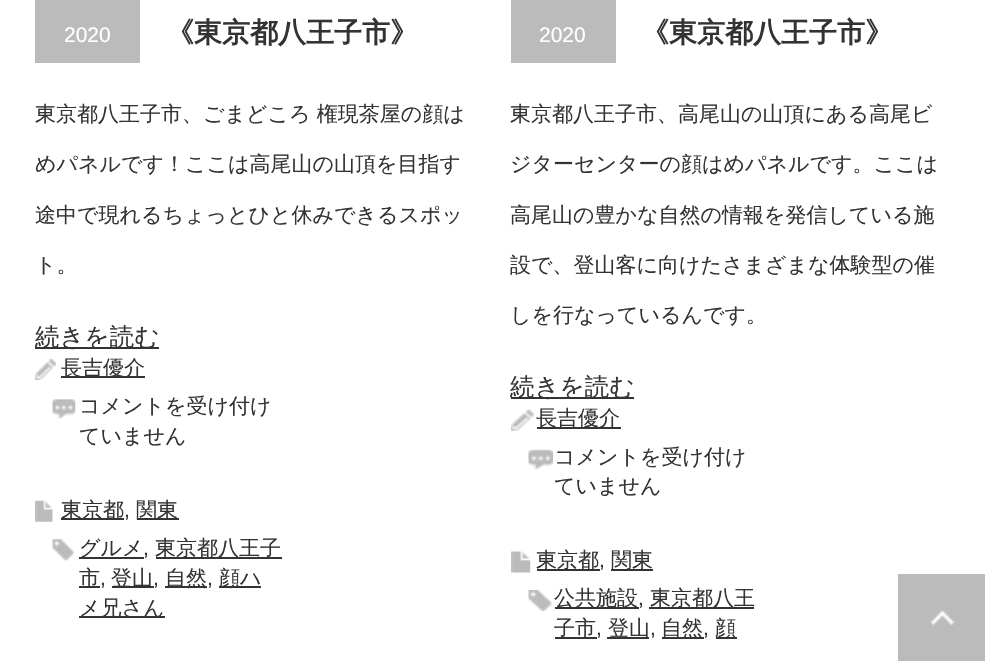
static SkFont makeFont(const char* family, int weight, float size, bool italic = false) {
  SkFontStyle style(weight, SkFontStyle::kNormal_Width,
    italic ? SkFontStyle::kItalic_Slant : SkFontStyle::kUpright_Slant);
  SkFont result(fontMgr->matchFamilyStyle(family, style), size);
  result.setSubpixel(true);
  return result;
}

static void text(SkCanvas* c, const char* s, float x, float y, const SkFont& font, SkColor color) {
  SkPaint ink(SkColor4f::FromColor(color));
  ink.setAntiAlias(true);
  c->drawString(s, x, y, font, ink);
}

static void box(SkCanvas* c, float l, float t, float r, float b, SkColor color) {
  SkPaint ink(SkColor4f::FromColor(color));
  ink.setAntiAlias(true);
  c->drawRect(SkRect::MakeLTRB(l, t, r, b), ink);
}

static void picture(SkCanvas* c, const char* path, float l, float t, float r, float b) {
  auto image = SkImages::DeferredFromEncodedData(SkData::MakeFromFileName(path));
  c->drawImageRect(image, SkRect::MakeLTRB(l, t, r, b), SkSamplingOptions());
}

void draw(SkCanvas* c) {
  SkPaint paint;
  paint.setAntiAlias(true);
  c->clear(0xffffffff);
  box(c, 35, 0, 140, 63, 0xffbbbbbb);
  SkFont face1 = makeFont("Liberation Sans", 400, 21);
  text(c, "2020", 64, 42, face1, 0xffffffff);
  SkFont face2 = makeFont("WenQuanYi Zen Hei", 700, 28);
  text(c, "《東京都八王子市》", 166, 42, face2, 0xff333333);
  SkFont face3 = makeFont("WenQuanYi Zen Hei", 500, 21);
  text(c, "東京都八王子市、ごまどころ 権現茶屋の顔は", 35, 121, face3, 0xff333333);
  text(c, "めパネルです！ここは高尾山の山頂を目指す", 35, 171, face3, 0xff333333);
  text(c, "途中で現れるちょっとひと休みできるスポッ", 35, 222, face3, 0xff333333);
  text(c, "ト。", 35, 272, face3, 0xff333333);
  box(c, 35, 347, 159, 349, 0xff333333);
  SkFont face4 = makeFont("WenQuanYi Zen Hei", 500, 24.5f);
  text(c, "続きを読む", 35, 345, face4, 0xff333333);
  picture(c, "img_01.png", 35, 359, 56, 380);
  box(c, 61, 376, 145, 378, 0xff333333);
  text(c, "長吉優介", 61, 375, face3, 0xff333333);
  picture(c, "img_02.png", 52, 399, 76, 419);
  text(c, "コメントを受け付け", 79, 413, face3, 0xff333333);
  text(c, "ていません", 79, 443, face3, 0xff333333);
  picture(c, "img_03.png", 35, 500, 53, 522);
  box(c, 61, 518, 124, 520, 0xff333333);
  text(c, "東京都", 61, 517, face3, 0xff333333);
  text(c, ",", 124, 517, face1, 0xff333333);
  box(c, 137, 518, 179, 520, 0xff333333);
  text(c, "関東", 136, 517, face3, 0xff333333);
  picture(c, "img_04.png", 52, 539, 74, 561);
  box(c, 79, 557, 144, 559, 0xff333333);
  text(c, "グルメ", 79, 555, face3, 0xff333333);
  text(c, ",", 143, 555, face1, 0xff333333);
  box(c, 156, 557, 282, 559, 0xff333333);
  text(c, "東京都八王子", 155, 555, face3, 0xff333333);
  box(c, 79, 586, 100, 588, 0xff333333);
  text(c, "市", 79, 585, face3, 0xff333333);
  text(c, ",", 100, 585, face1, 0xff333333);
  box(c, 112, 586, 154, 588, 0xff333333);
  text(c, "登山", 111, 585, face3, 0xff333333);
  text(c, ",", 153, 585, face1, 0xff333333);
  box(c, 165, 586, 207, 588, 0xff333333);
  text(c, "自然", 165, 585, face3, 0xff333333);
  text(c, ",", 207, 585, face1, 0xff333333);
  box(c, 219, 586, 261, 588, 0xff333333);
  text(c, "顔ハ", 219, 585, face3, 0xff333333);
  box(c, 79, 616, 165, 618, 0xff333333);
  text(c, "メ兄さん", 79, 615, face3, 0xff333333);
  box(c, 511, 0, 616, 63, 0xffbbbbbb);
  text(c, "2020", 539, 42, face1, 0xffffffff);
  text(c, "《東京都八王子市》", 641, 42, face2, 0xff333333);
  text(c, "東京都八王子市、高尾山の山頂にある高尾ビ", 510, 121, face3, 0xff333333);
  text(c, "ジターセンターの顔はめパネルです。ここは", 510, 171, face3, 0xff333333);
  text(c, "高尾山の豊かな自然の情報を発信している施", 510, 222, face3, 0xff333333);
  text(c, "設で、登山客に向けたさまざまな体験型の催", 510, 272, face3, 0xff333333);
  text(c, "しを行なっているんです。", 510, 322, face3, 0xff333333);
  box(c, 511, 397, 634, 399, 0xff333333);
  text(c, "続きを読む", 510, 395, face4, 0xff333333);
  picture(c, "img_05.png", 511, 409, 534, 431);
  box(c, 537, 427, 621, 429, 0xff333333);
  text(c, "長吉優介", 536, 425, face3, 0xff333333);
  picture(c, "img_06.png", 528, 449, 553, 470);
  text(c, "コメントを受け付け", 554, 464, face3, 0xff333333);
  text(c, "ていません", 554, 493, face3, 0xff333333);
  picture(c, "img_07.png", 511, 551, 531, 573);
  box(c, 537, 569, 600, 571, 0xff333333);
  text(c, "東京都", 536, 567, face3, 0xff333333);
  text(c, ",", 599, 567, face1, 0xff333333);
  box(c, 611, 569, 653, 571, 0xff333333);
  text(c, "関東", 611, 567, face3, 0xff333333);
  picture(c, "img_08.png", 528, 590, 552, 611);
  box(c, 555, 607, 639, 609, 0xff333333);
  text(c, "公共施設", 554, 605, face3, 0xff333333);
  text(c, ",", 638, 605, face1, 0xff333333);
  box(c, 649, 607, 754, 609, 0xff333333);
  text(c, "東京都八王", 650, 605, face3, 0xff333333);
  box(c, 555, 637, 597, 639, 0xff333333);
  text(c, "子市", 554, 635, face3, 0xff333333);
  text(c, ",", 596, 635, face1, 0xff333333);
  box(c, 607, 637, 649, 639, 0xff333333);
  text(c, "登山", 608, 635, face3, 0xff333333);
  text(c, ",", 650, 635, face1, 0xff333333);
  box(c, 662, 637, 704, 639, 0xff333333);
  text(c, "自然", 661, 635, face3, 0xff333333);
  text(c, ",", 703, 635, face1, 0xff333333);
  box(c, 716, 637, 737, 639, 0xff333333);
  text(c, "顔", 715, 635, face3, 0xff333333);
  box(c, 898, 574, 985, 661, 0xffbbbbbb);
  picture(c, "img_09.png", 930, 610, 955, 626);
}
